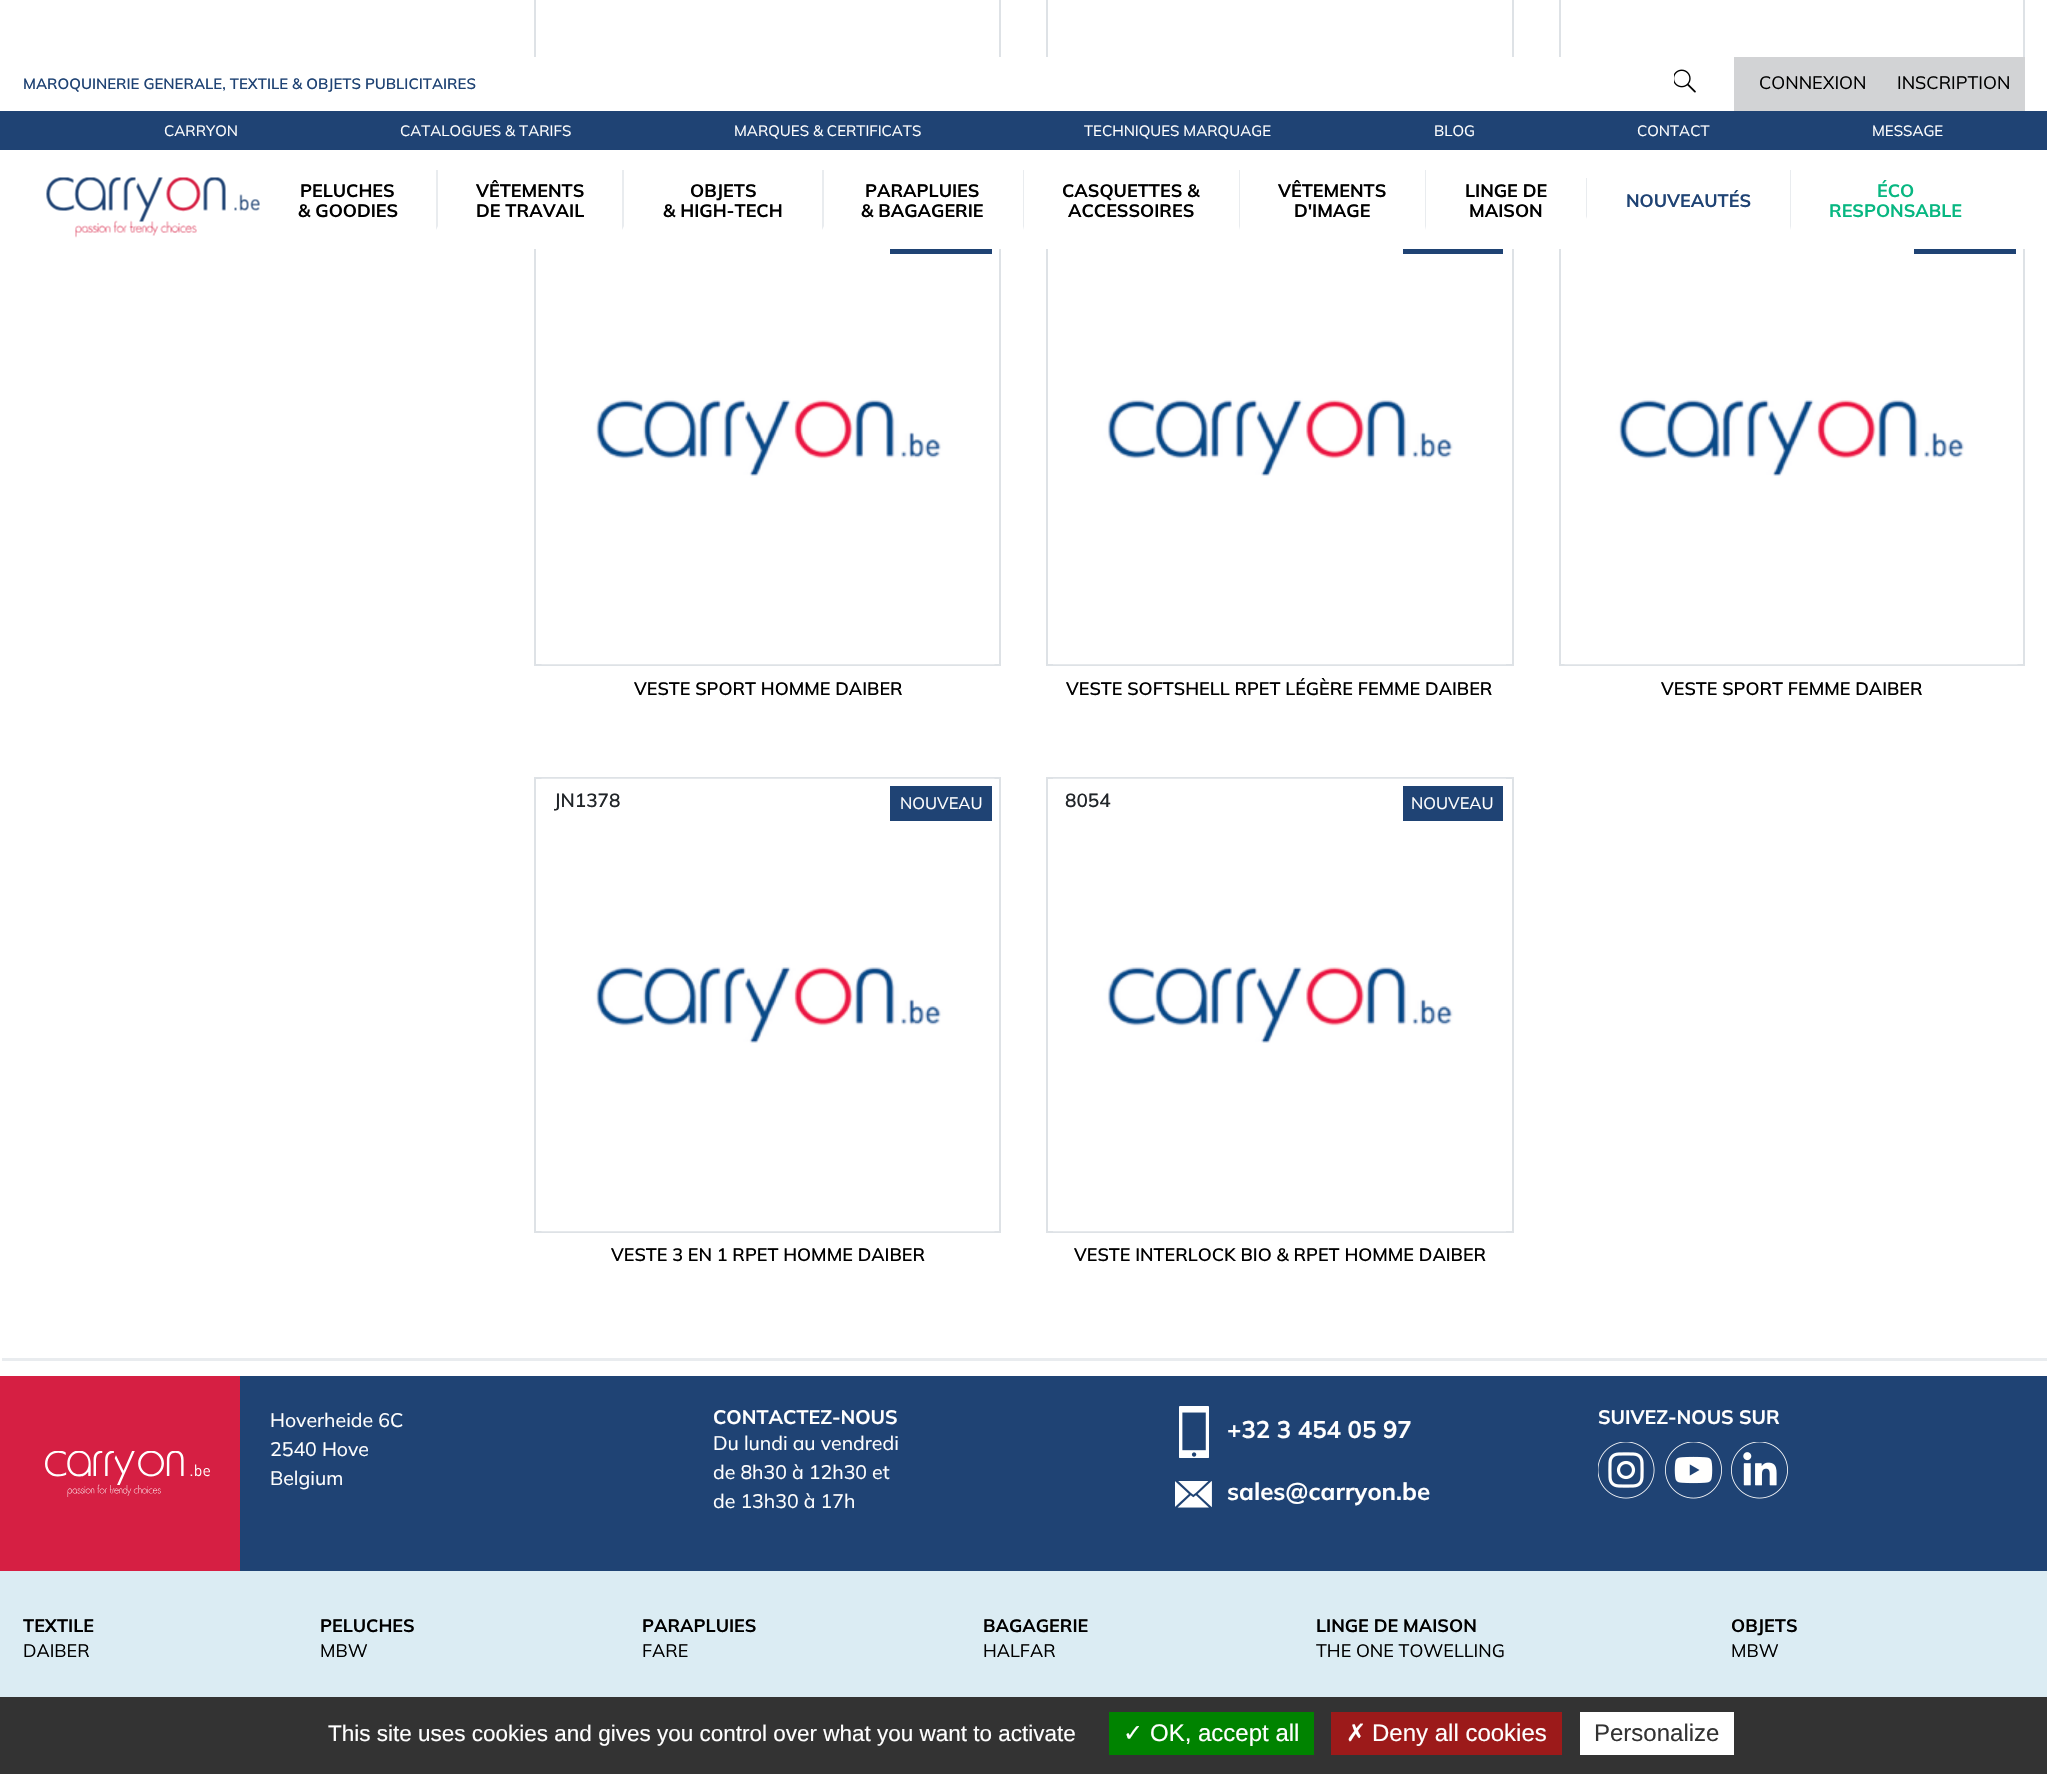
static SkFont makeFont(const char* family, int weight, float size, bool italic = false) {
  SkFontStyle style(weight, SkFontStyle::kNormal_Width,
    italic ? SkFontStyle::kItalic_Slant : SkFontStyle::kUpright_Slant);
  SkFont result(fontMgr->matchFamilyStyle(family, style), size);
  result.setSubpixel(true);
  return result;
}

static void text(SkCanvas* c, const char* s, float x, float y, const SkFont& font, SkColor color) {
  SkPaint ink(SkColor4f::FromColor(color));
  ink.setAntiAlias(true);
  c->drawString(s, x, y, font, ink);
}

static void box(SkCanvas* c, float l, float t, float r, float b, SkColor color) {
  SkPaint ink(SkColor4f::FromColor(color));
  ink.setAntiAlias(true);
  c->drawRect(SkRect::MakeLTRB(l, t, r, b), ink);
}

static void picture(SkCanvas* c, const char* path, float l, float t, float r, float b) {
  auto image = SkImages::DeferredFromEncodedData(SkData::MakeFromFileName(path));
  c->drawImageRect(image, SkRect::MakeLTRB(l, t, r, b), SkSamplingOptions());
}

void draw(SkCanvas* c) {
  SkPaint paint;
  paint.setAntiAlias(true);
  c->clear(0xffffffff);
  paint.setStyle(SkPaint::kStroke_Style);
  paint.setStrokeWidth(2);
  paint.setColor(0xffdee2e6);
  c->drawRect(SkRect::MakeLTRB(535, -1, 1000, 98), paint);
  c->drawRect(SkRect::MakeLTRB(1047, -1, 1513, 98), paint);
  c->drawRect(SkRect::MakeLTRB(1560, -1, 2024, 98), paint);
  c->drawRect(SkRect::MakeLTRB(535, 211, 1000, 665), paint);
  c->drawRect(SkRect::MakeLTRB(1047, 211, 1513, 665), paint);
  c->drawRect(SkRect::MakeLTRB(1560, 211, 2024, 665), paint);
  box(c, 534, 57, 2025, 249, 0xffffffff);
  SkFont face1 = makeFont("Mulish", 600, 15);
  text(c, "MAROQUINERIE GENERALE, TEXTILE & OBJETS PUBLICITAIRES", 23, 89, face1, 0xff1f4374);
  picture(c, "img_01.png", 1674, 69, 1696, 93);
  box(c, 1734, 57, 2025, 111, 0xffd2d3d5);
  SkFont face2 = makeFont("Mulish", 400, 18);
  text(c, "CONNEXION", 1759, 89, face2, 0xff000000);
  text(c, "INSCRIPTION", 1897, 89, face2, 0xff000000);
  box(c, 0, 111, 2047, 150, 0xff1f4374);
  SkFont face3 = makeFont("Mulish", 400, 15);
  text(c, "CARRYON", 164, 136, face3, 0xffffffff);
  text(c, "CATALOGUES & TARIFS", 400, 136, face3, 0xffffffff);
  text(c, "MARQUES & CERTIFICATS", 734, 136, face3, 0xffffffff);
  text(c, "TECHNIQUES MARQUAGE", 1084, 136, face3, 0xffffffff);
  text(c, "BLOG", 1434, 136, face3, 0xffffffff);
  text(c, "CONTACT", 1637, 136, face3, 0xffffffff);
  text(c, "MESSAGE", 1872, 136, face3, 0xffffffff);
  picture(c, "img_02.png", 46, 177, 260, 238);
  SkFont face4 = makeFont("Mulish", 700, 18);
  text(c, "PELUCHES", 300, 197, face4, 0xff000000);
  text(c, "& GOODIES", 298, 217, face4, 0xff000000);
  paint.setStyle(SkPaint::kFill_Style);
  paint.setColor(0xffe9ecef);
  c->drawPath(SkPathBuilder().moveTo(436, 230).lineTo(436, 170).lineTo(438, 170).lineTo(438, 226).close().detach(), paint);
  text(c, "VÊTEMENTS", 476, 197, face4, 0xff000000);
  text(c, "DE TRAVAIL", 476, 217, face4, 0xff000000);
  c->drawPath(SkPathBuilder().moveTo(622, 230).lineTo(622, 170).lineTo(624, 170).lineTo(624, 226).close().detach(), paint);
  text(c, "OBJETS", 690, 197, face4, 0xff000000);
  text(c, "& HIGH-TECH", 663, 217, face4, 0xff000000);
  c->drawPath(SkPathBuilder().moveTo(822, 230).lineTo(822, 170).lineTo(824, 170).lineTo(824, 226).close().detach(), paint);
  text(c, "PARAPLUIES", 865, 197, face4, 0xff000000);
  text(c, "& BAGAGERIE", 861, 217, face4, 0xff000000);
  c->drawPath(SkPathBuilder().moveTo(1023, 230).lineTo(1023, 170).lineTo(1024, 170).lineTo(1024, 226).close().detach(), paint);
  text(c, "CASQUETTES &", 1062, 197, face4, 0xff000000);
  text(c, "ACCESSOIRES", 1068, 217, face4, 0xff000000);
  c->drawPath(SkPathBuilder().moveTo(1239, 230).lineTo(1239, 170).lineTo(1240, 170).lineTo(1240, 226).close().detach(), paint);
  text(c, "VÊTEMENTS", 1278, 197, face4, 0xff000000);
  text(c, "D'IMAGE", 1294, 217, face4, 0xff000000);
  c->drawPath(SkPathBuilder().moveTo(1425, 230).lineTo(1425, 170).lineTo(1426, 170).lineTo(1426, 226).close().detach(), paint);
  text(c, "LINGE DE", 1465, 197, face4, 0xff000000);
  text(c, "MAISON", 1469, 217, face4, 0xff000000);
  c->drawPath(SkPathBuilder().moveTo(1586, 219).lineTo(1586, 178).lineTo(1587, 178).lineTo(1587, 216).close().detach(), paint);
  text(c, "NOUVEAUTÉS", 1626, 207, face4, 0xff1f4374);
  c->drawPath(SkPathBuilder().moveTo(1790, 230).lineTo(1790, 170).lineTo(1791, 170).lineTo(1791, 226).close().detach(), paint);
  text(c, "ÉCO", 1877, 197, face4, 0xff07b781);
  text(c, "RESPONSABLE", 1829, 217, face4, 0xff07b781);
  picture(c, "img_03.png", 541, 249, 995, 665);
  box(c, 890, 249, 992, 254, 0xff1f4374);
  SkFont face5 = makeFont("Mulish", 600, 18);
  text(c, "VESTE SPORT HOMME DAIBER", 634, 695, face5, 0xff000000);
  picture(c, "img_04.png", 1053, 249, 1506, 665);
  box(c, 1403, 249, 1503, 254, 0xff1f4374);
  text(c, "VESTE SOFTSHELL RPET LÉGÈRE FEMME DAIBER", 1066, 695, face5, 0xff000000);
  picture(c, "img_05.png", 1564, 249, 2018, 665);
  box(c, 1914, 249, 2016, 254, 0xff1f4374);
  text(c, "VESTE SPORT FEMME DAIBER", 1661, 695, face5, 0xff000000);
  paint.setStyle(SkPaint::kStroke_Style);
  paint.setColor(0xffdee2e6);
  c->drawRect(SkRect::MakeLTRB(535, 778, 1000, 1232), paint);
  picture(c, "img_06.png", 541, 778, 995, 1232);
  SkFont face6 = makeFont("Mulish", 600, 19);
  text(c, "JN1378", 554, 807, face6, 0xff212529);
  text(c, "VESTE 3 EN 1 RPET HOMME DAIBER", 611, 1261, face5, 0xff000000);
  box(c, 890, 786, 992, 821, 0xff1f4374);
  SkFont face7 = makeFont("Mulish", 400, 16.5f);
  text(c, "NOUVEAU", 900, 809, face7, 0xffffffff);
  c->drawRect(SkRect::MakeLTRB(1047, 778, 1513, 1232), paint);
  picture(c, "img_07.png", 1053, 778, 1506, 1232);
  text(c, "8054", 1065, 807, face6, 0xff212529);
  text(c, "VESTE INTERLOCK BIO & RPET HOMME DAIBER", 1074, 1261, face5, 0xff000000);
  box(c, 1403, 786, 1503, 821, 0xff1f4374);
  text(c, "NOUVEAU", 1411, 809, face7, 0xffffffff);
  box(c, 2, 1358, 2047, 1361, 0xffe9ecef);
  box(c, 0, 1571, 2047, 1697, 0xffdbecf3);
  box(c, 240, 1376, 2047, 1571, 0xff1f4374);
  box(c, 0, 1376, 240, 1571, 0xffd61f43);
  picture(c, "img_08.png", 45, 1451, 210, 1497);
  SkFont face8 = makeFont("Mulish", 400, 19.5f);
  text(c, "Hoverheide 6C", 270, 1427, face8, 0xffffffff);
  text(c, "2540 Hove", 270, 1456, face8, 0xffffffff);
  text(c, "Belgium", 270, 1485, face8, 0xffffffff);
  SkFont face9 = makeFont("Mulish", 700, 19.5f);
  text(c, "CONTACTEZ-NOUS", 713, 1424, face9, 0xffffffff);
  text(c, "Du lundi au vendredi", 713, 1450, face8, 0xffffffff);
  text(c, "de 8h30 à 12h30 et", 713, 1479, face8, 0xffffffff);
  text(c, "de 13h30 à 17h", 713, 1508, face8, 0xffffffff);
  picture(c, "img_09.png", 1179, 1406, 1209, 1458);
  SkFont face10 = makeFont("Mulish", 700, 24);
  text(c, "+32 3 454 05 97", 1227, 1438, face10, 0xffffffff);
  picture(c, "img_10.png", 1175, 1481, 1212, 1508);
  text(c, "sales@carryon.be", 1227, 1500, face10, 0xffffffff);
  text(c, "SUIVEZ-NOUS SUR", 1598, 1424, face9, 0xffffffff);
  picture(c, "img_11.png", 1598, 1442, 1655, 1499);
  picture(c, "img_12.png", 1665, 1442, 1722, 1499);
  picture(c, "img_13.png", 1731, 1442, 1788, 1499);
  text(c, "TEXTILE", 23, 1632, face4, 0xff000000);
  text(c, "DAIBER", 23, 1657, face2, 0xff000000);
  text(c, "PELUCHES", 320, 1632, face4, 0xff000000);
  text(c, "MBW", 320, 1657, face2, 0xff000000);
  text(c, "PARAPLUIES", 642, 1632, face4, 0xff000000);
  text(c, "FARE", 642, 1657, face2, 0xff000000);
  text(c, "BAGAGERIE", 983, 1632, face4, 0xff000000);
  text(c, "HALFAR", 983, 1657, face2, 0xff000000);
  text(c, "LINGE DE MAISON", 1316, 1632, face4, 0xff000000);
  text(c, "THE ONE TOWELLING", 1316, 1657, face2, 0xff000000);
  text(c, "OBJETS", 1731, 1632, face4, 0xff000000);
  text(c, "MBW", 1731, 1657, face2, 0xff000000);
  box(c, 0, 1697, 2047, 1774, 0xff333333);
  SkFont face11 = makeFont("Liberation Sans", 400, 22.5f);
  text(c, "This site uses cookies and gives you control over what you want to activate", 328, 1741, face11, 0xffffffff);
  box(c, 1109, 1712, 1314, 1755, 0xff008300);
  SkFont face12 = makeFont("DejaVu Sans", 400, 24);
  text(c, "✓", 1123, 1741, face12, 0xffffffff);
  SkFont face13 = makeFont("Liberation Sans", 400, 24);
  text(c, "OK, accept all", 1150, 1741, face13, 0xffffffff);
  box(c, 1331, 1712, 1562, 1755, 0xff9c1a1a);
  text(c, "✗", 1346, 1741, face12, 0xffffffff);
  text(c, "Deny all cookies", 1372, 1741, face13, 0xffffffff);
  box(c, 1580, 1712, 1734, 1755, 0xffffffff);
  text(c, "Personalize", 1594, 1741, face13, 0xff333333);
}
